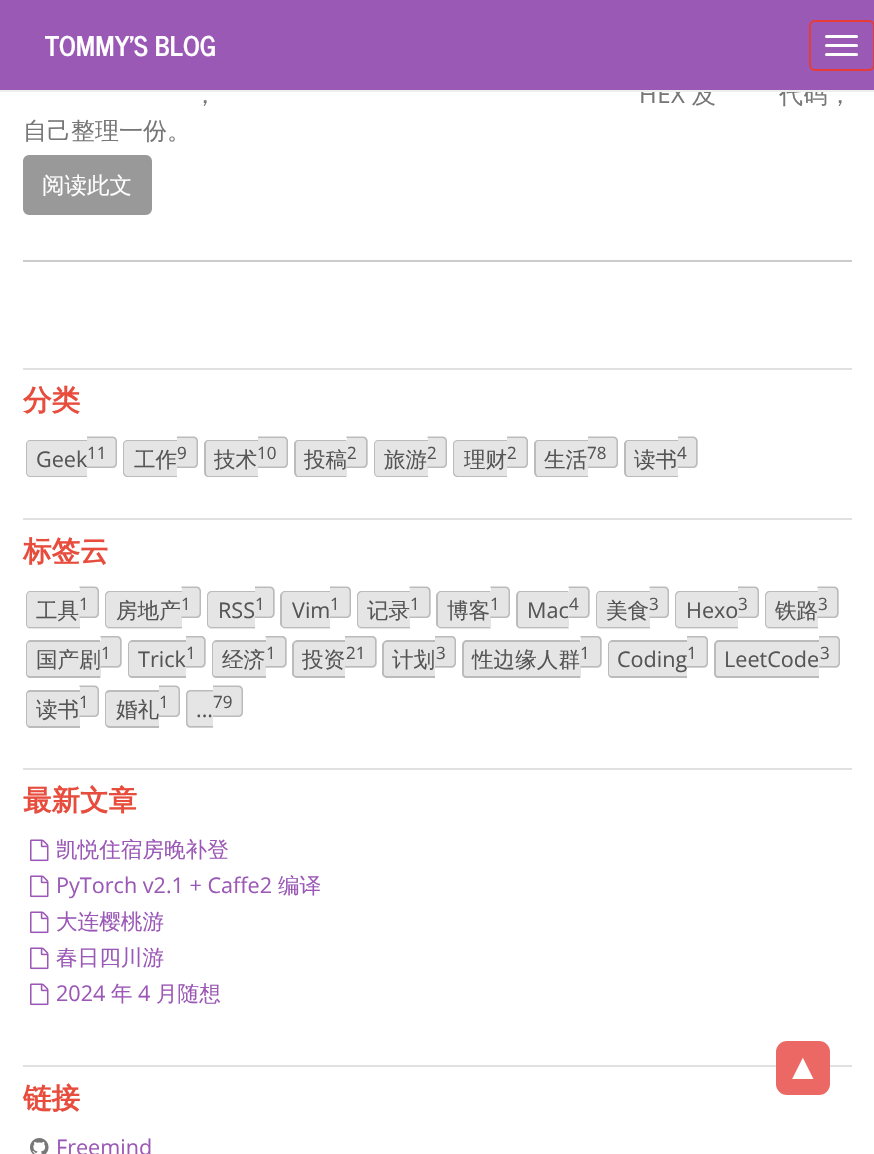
static SkFont makeFont(const char* family, int weight, float size, bool italic = false) {
  SkFontStyle style(weight, SkFontStyle::kNormal_Width,
    italic ? SkFontStyle::kItalic_Slant : SkFontStyle::kUpright_Slant);
  SkFont result(fontMgr->matchFamilyStyle(family, style), size);
  result.setSubpixel(true);
  return result;
}

static void text(SkCanvas* c, const char* s, float x, float y, const SkFont& font, SkColor color) {
  SkPaint ink(SkColor4f::FromColor(color));
  ink.setAntiAlias(true);
  c->drawString(s, x, y, font, ink);
}

static void spacedText(SkCanvas* c, const char* s, float x, float y, const SkFont& font, const SkPaint& ink, float letter, float word) {
  std::vector<SkGlyphID> glyphs(font.countText(s, strlen(s), SkTextEncoding::kUTF8));
  std::vector<float> xs(glyphs.size());
  font.textToGlyphs(s, strlen(s), SkTextEncoding::kUTF8, glyphs);
  font.getXPos(glyphs, xs, x);
  float extra = 0;
  for (size_t i = 0; i < glyphs.size(); i++) {
    xs[i] += extra;
    extra += letter + word * (glyphs[i] == font.unicharToGlyph(' '));
  }
  c->drawTextBlob(SkTextBlob::MakeFromPosHGlyphs(glyphs, xs, y, font), 0, 0, ink);
}

static void box(SkCanvas* c, float l, float t, float r, float b, SkColor color) {
  SkPaint ink(SkColor4f::FromColor(color));
  ink.setAntiAlias(true);
  c->drawRect(SkRect::MakeLTRB(l, t, r, b), ink);
}

static void roundBox(SkCanvas* c, float l, float t, float r, float b, float radius, SkColor color) {
  SkPaint ink(SkColor4f::FromColor(color));
  ink.setAntiAlias(true);
  c->drawRoundRect(SkRect::MakeLTRB(l, t, r, b), radius, radius, ink);
}

static void picture(SkCanvas* c, const char* path, float l, float t, float r, float b) {
  auto image = SkImages::DeferredFromEncodedData(SkData::MakeFromFileName(path));
  c->drawImageRect(image, SkRect::MakeLTRB(l, t, r, b), SkSamplingOptions());
}

void draw(SkCanvas* c) {
  SkPaint paint;
  paint.setAntiAlias(true);
  c->clear(0xffffffff);
  SkFont face1 = makeFont("Open Sans", 400, 24);
  paint.setColor(0xff777777);
  spacedText(c, "HEX", 639, 103, face1, paint, 0.5f, 0);
  SkFont face2 = makeFont("WenQuanYi Zen Hei", 500, 24);
  spacedText(c, "及", 692, 103, face2, paint, 0.5f, 0);
  spacedText(c, "代码，", 779, 103, face2, paint, 0.5f, 0);
  box(c, 0, 0, 874, 90, 0xff9b59b6);
  box(c, 0, 90, 874, 92, 0xffeeeeee);
  SkFont face3 = makeFont("News Cycle", 700, 27);
  text(c, "TOMMY'S BLOG", 45, 56, face3, 0xffffffff);
  paint.setStyle(SkPaint::kStroke_Style);
  paint.setStrokeWidth(2);
  paint.setColor(0xffe53c37);
  c->drawRoundRect(SkRect::MakeLTRB(810, 21, 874, 70), 5, 5, paint);
  roundBox(c, 825, 35, 858, 38, 1.5f, 0xffffffff);
  roundBox(c, 825, 44, 858, 47, 1.5f, 0xffffffff);
  roundBox(c, 825, 53, 858, 56, 1.5f, 0xffffffff);
  box(c, 23, 260, 852, 262, 0xffcccccc);
  paint.setStyle(SkPaint::kFill_Style);
  paint.setColor(0xff777777);
  spacedText(c, "，", 193, 103, face2, paint, 0.5f, 0);
  text(c, "自己整理一份。", 23, 139, face2, 0xff777777);
  paint.setColor(0xff999999);
  c->drawRoundRect(SkRect::MakeLTRB(24, 156, 151, 214), 5, 5, paint);
  paint.setStyle(SkPaint::kStroke_Style);
  c->drawRoundRect(SkRect::MakeLTRB(24, 156, 151, 214), 5, 5, paint);
  SkFont face4 = makeFont("WenQuanYi Zen Hei", 500, 22.5f);
  text(c, "阅读此文", 42, 193, face4, 0xffffffff);
  box(c, 23, 368, 852, 370, 0xffe0e0e0);
  box(c, 23, 518, 852, 520, 0xffe0e0e0);
  SkFont face5 = makeFont("WenQuanYi Zen Hei", 700, 28.5f);
  text(c, "分类", 23, 410, face5, 0xffe74c3c);
  paint.setStyle(SkPaint::kFill_Style);
  paint.setColor(0xffe5e5e5);
  c->drawPath(SkPathBuilder().moveTo(31, 440).lineTo(87, 440).lineTo(87, 477).lineTo(31, 477).cubicTo(28, 477, 26, 475, 26, 472).lineTo(26, 445).cubicTo(26, 442, 28, 440, 31, 440).close().detach(), paint);
  paint.setColor(0xffbbbbbb);
  c->drawPath(SkPathBuilder(SkPathFillType::kEvenOdd).moveTo(30, 440).lineTo(87, 440).lineTo(87, 477).lineTo(30, 477).cubicTo(28, 477, 26, 475, 26, 472).lineTo(26, 444).cubicTo(26, 442, 28, 440, 30, 440).close().moveTo(30, 441).lineTo(87, 441).lineTo(87, 476).lineTo(30, 476).cubicTo(28, 476, 27, 474, 27, 472).lineTo(27, 444).cubicTo(27, 442, 28, 441, 30, 441).close().detach(), paint);
  paint.setColor(0xffe5e5e5);
  c->drawPath(SkPathBuilder().moveTo(87, 437).lineTo(112, 437).cubicTo(115, 437, 117, 439, 117, 442).lineTo(117, 463).cubicTo(117, 466, 115, 468, 112, 468).lineTo(87, 468).close().detach(), paint);
  paint.setColor(0xffbbbbbb);
  c->drawPath(SkPathBuilder(SkPathFillType::kEvenOdd).moveTo(87, 436.5f).lineTo(112.5f, 436.5f).cubicTo(115, 436.5f, 117, 438.5f, 117, 441).lineTo(117, 463.5f).cubicTo(117, 466, 115, 468, 112.5f, 468).lineTo(87, 468).close().moveTo(87, 438).lineTo(112.5f, 438).cubicTo(114, 438, 115.5f, 439.5f, 115.5f, 441).lineTo(115.5f, 463.5f).cubicTo(115.5f, 465, 114, 466.5f, 112.5f, 466.5f).lineTo(87, 466.5f).close().detach(), paint);
  SkFont face6 = makeFont("Open Sans", 400, 21.6f);
  text(c, "Geek", 36, 467, face6, 0xff555555);
  SkFont face7 = makeFont("Open Sans", 400, 17);
  text(c, "11", 87, 459, face7, 0xff555555);
  paint.setColor(0xffe5e5e5);
  c->drawPath(SkPathBuilder().moveTo(128, 440).lineTo(177, 440).lineTo(177, 477).lineTo(128, 477).cubicTo(125, 477, 123, 475, 123, 472).lineTo(123, 445).cubicTo(123, 442, 125, 440, 128, 440).close().detach(), paint);
  paint.setColor(0xffbbbbbb);
  c->drawPath(SkPathBuilder(SkPathFillType::kEvenOdd).moveTo(128, 440).lineTo(177, 440).lineTo(177, 477).lineTo(128, 477).cubicTo(125, 477, 123, 475, 123, 472).lineTo(123, 444).cubicTo(123, 442, 125, 440, 128, 440).close().moveTo(128, 441).lineTo(177, 441).lineTo(177, 476).lineTo(128, 476).cubicTo(126, 476, 124, 474, 124, 472).lineTo(124, 444).cubicTo(124, 442, 126, 441, 128, 441).close().detach(), paint);
  SkFont face8 = makeFont("WenQuanYi Zen Hei", 500, 21.6f);
  text(c, "工作", 134, 467, face8, 0xff555555);
  paint.setColor(0xffe5e5e5);
  c->drawPath(SkPathBuilder().moveTo(177, 437).lineTo(193, 437).cubicTo(196, 437, 198, 439, 198, 442).lineTo(198, 463).cubicTo(198, 466, 196, 468, 193, 468).lineTo(177, 468).close().detach(), paint);
  paint.setColor(0xffbbbbbb);
  c->drawPath(SkPathBuilder(SkPathFillType::kEvenOdd).moveTo(177, 436.5f).lineTo(193.5f, 436.5f).cubicTo(196, 436.5f, 198, 438.5f, 198, 441).lineTo(198, 463.5f).cubicTo(198, 466, 196, 468, 193.5f, 468).lineTo(177, 468).close().moveTo(177, 438).lineTo(193.5f, 438).cubicTo(195, 438, 196.5f, 439.5f, 196.5f, 441).lineTo(196.5f, 463.5f).cubicTo(196.5f, 465, 195, 466.5f, 193.5f, 466.5f).lineTo(177, 466.5f).close().detach(), paint);
  text(c, "9", 177, 459, face7, 0xff555555);
  paint.setColor(0xffe5e5e5);
  c->drawPath(SkPathBuilder().moveTo(209, 440).lineTo(258, 440).lineTo(258, 477).lineTo(209, 477).cubicTo(206, 477, 204, 475, 204, 472).lineTo(204, 445).cubicTo(204, 442, 206, 440, 209, 440).close().detach(), paint);
  paint.setColor(0xffbbbbbb);
  c->drawPath(SkPathBuilder(SkPathFillType::kEvenOdd).moveTo(208, 440).lineTo(258, 440).lineTo(258, 477).lineTo(208, 477).cubicTo(206, 477, 204, 475, 204, 472).lineTo(204, 444).cubicTo(204, 442, 206, 440, 208, 440).close().moveTo(208, 441).lineTo(258, 441).lineTo(258, 476).lineTo(208, 476).cubicTo(207, 476, 206, 474, 206, 472).lineTo(206, 444).cubicTo(206, 442, 207, 441, 208, 441).close().detach(), paint);
  text(c, "技术", 214, 467, face8, 0xff555555);
  paint.setColor(0xffe5e5e5);
  c->drawPath(SkPathBuilder().moveTo(258, 437).lineTo(283, 437).cubicTo(286, 437, 288, 439, 288, 442).lineTo(288, 463).cubicTo(288, 466, 286, 468, 283, 468).lineTo(258, 468).close().detach(), paint);
  paint.setColor(0xffbbbbbb);
  c->drawPath(SkPathBuilder(SkPathFillType::kEvenOdd).moveTo(258, 436.5f).lineTo(283.5f, 436.5f).cubicTo(286, 436.5f, 288, 438.5f, 288, 441).lineTo(288, 463.5f).cubicTo(288, 466, 286, 468, 283.5f, 468).lineTo(258, 468).close().moveTo(258, 438).lineTo(283.5f, 438).cubicTo(285, 438, 286.5f, 439.5f, 286.5f, 441).lineTo(286.5f, 463.5f).cubicTo(286.5f, 465, 285, 466.5f, 283.5f, 466.5f).lineTo(258, 466.5f).close().detach(), paint);
  text(c, "10", 257, 459, face7, 0xff555555);
  paint.setColor(0xffe5e5e5);
  c->drawPath(SkPathBuilder().moveTo(299, 440).lineTo(347, 440).lineTo(347, 477).lineTo(299, 477).cubicTo(296, 477, 294, 475, 294, 472).lineTo(294, 445).cubicTo(294, 442, 296, 440, 299, 440).close().detach(), paint);
  paint.setColor(0xffbbbbbb);
  c->drawPath(SkPathBuilder(SkPathFillType::kEvenOdd).moveTo(298, 440).lineTo(346, 440).lineTo(346, 477).lineTo(298, 477).cubicTo(296, 477, 294, 475, 294, 472).lineTo(294, 444).cubicTo(294, 442, 296, 440, 298, 440).close().moveTo(298, 441).lineTo(346, 441).lineTo(346, 476).lineTo(298, 476).cubicTo(297, 476, 296, 474, 296, 472).lineTo(296, 444).cubicTo(296, 442, 297, 441, 298, 441).close().detach(), paint);
  paint.setColor(0xffe5e5e5);
  c->drawPath(SkPathBuilder().moveTo(347, 437).lineTo(363, 437).cubicTo(366, 437, 368, 439, 368, 442).lineTo(368, 463).cubicTo(368, 466, 366, 468, 363, 468).lineTo(347, 468).close().detach(), paint);
  paint.setColor(0xffbbbbbb);
  c->drawPath(SkPathBuilder(SkPathFillType::kEvenOdd).moveTo(346.5f, 436.5f).lineTo(363, 436.5f).cubicTo(365.5f, 436.5f, 367.5f, 438.5f, 367.5f, 441).lineTo(367.5f, 463.5f).cubicTo(367.5f, 466, 365.5f, 468, 363, 468).lineTo(346.5f, 468).close().moveTo(346.5f, 438).lineTo(363, 438).cubicTo(364.5f, 438, 366, 439.5f, 366, 441).lineTo(366, 463.5f).cubicTo(366, 465, 364.5f, 466.5f, 363, 466.5f).lineTo(346.5f, 466.5f).close().detach(), paint);
  text(c, "投稿", 304, 467, face8, 0xff555555);
  text(c, "2", 347, 459, face7, 0xff555555);
  paint.setColor(0xffe5e5e5);
  c->drawPath(SkPathBuilder().moveTo(379, 440).lineTo(428, 440).lineTo(428, 477).lineTo(379, 477).cubicTo(376, 477, 374, 475, 374, 472).lineTo(374, 445).cubicTo(374, 442, 376, 440, 379, 440).close().detach(), paint);
  paint.setColor(0xffbbbbbb);
  c->drawPath(SkPathBuilder(SkPathFillType::kEvenOdd).moveTo(378, 440).lineTo(428, 440).lineTo(428, 477).lineTo(378, 477).cubicTo(376, 477, 374, 475, 374, 472).lineTo(374, 444).cubicTo(374, 442, 376, 440, 378, 440).close().moveTo(378, 441).lineTo(428, 441).lineTo(428, 476).lineTo(378, 476).cubicTo(376, 476, 375, 474, 375, 472).lineTo(375, 444).cubicTo(375, 442, 376, 441, 378, 441).close().detach(), paint);
  text(c, "旅游", 384, 467, face8, 0xff555555);
  paint.setColor(0xffe5e5e5);
  c->drawPath(SkPathBuilder().moveTo(428, 437).lineTo(442, 437).cubicTo(445, 437, 447, 439, 447, 442).lineTo(447, 463).cubicTo(447, 466, 445, 468, 442, 468).lineTo(428, 468).close().detach(), paint);
  paint.setColor(0xffbbbbbb);
  c->drawPath(SkPathBuilder(SkPathFillType::kEvenOdd).moveTo(427.5f, 436.5f).lineTo(442.5f, 436.5f).cubicTo(445, 436.5f, 447, 438.5f, 447, 441).lineTo(447, 463.5f).cubicTo(447, 466, 445, 468, 442.5f, 468).lineTo(427.5f, 468).close().moveTo(427.5f, 438).lineTo(442.5f, 438).cubicTo(444, 438, 445.5f, 439.5f, 445.5f, 441).lineTo(445.5f, 463.5f).cubicTo(445.5f, 465, 444, 466.5f, 442.5f, 466.5f).lineTo(427.5f, 466.5f).close().detach(), paint);
  text(c, "2", 427, 459, face7, 0xff555555);
  paint.setColor(0xffe5e5e5);
  c->drawPath(SkPathBuilder().moveTo(458, 440).lineTo(507, 440).lineTo(507, 477).lineTo(458, 477).cubicTo(455, 477, 453, 475, 453, 472).lineTo(453, 445).cubicTo(453, 442, 455, 440, 458, 440).close().detach(), paint);
  paint.setColor(0xffbbbbbb);
  c->drawPath(SkPathBuilder(SkPathFillType::kEvenOdd).moveTo(458, 440).lineTo(507, 440).lineTo(507, 477).lineTo(458, 477).cubicTo(455, 477, 453, 475, 453, 472).lineTo(453, 444).cubicTo(453, 442, 455, 440, 458, 440).close().moveTo(458, 441).lineTo(507, 441).lineTo(507, 476).lineTo(458, 476).cubicTo(456, 476, 454, 474, 454, 472).lineTo(454, 444).cubicTo(454, 442, 456, 441, 458, 441).close().detach(), paint);
  text(c, "理财", 464, 467, face8, 0xff555555);
  paint.setColor(0xffe5e5e5);
  c->drawPath(SkPathBuilder().moveTo(507, 437).lineTo(523, 437).cubicTo(526, 437, 528, 439, 528, 442).lineTo(528, 463).cubicTo(528, 466, 526, 468, 523, 468).lineTo(507, 468).close().detach(), paint);
  paint.setColor(0xffbbbbbb);
  c->drawPath(SkPathBuilder(SkPathFillType::kEvenOdd).moveTo(507, 436.5f).lineTo(523.5f, 436.5f).cubicTo(526, 436.5f, 528, 438.5f, 528, 441).lineTo(528, 463.5f).cubicTo(528, 466, 526, 468, 523.5f, 468).lineTo(507, 468).close().moveTo(507, 438).lineTo(523.5f, 438).cubicTo(525, 438, 526.5f, 439.5f, 526.5f, 441).lineTo(526.5f, 463.5f).cubicTo(526.5f, 465, 525, 466.5f, 523.5f, 466.5f).lineTo(507, 466.5f).close().detach(), paint);
  text(c, "2", 507, 459, face7, 0xff555555);
  paint.setColor(0xffe5e5e5);
  c->drawPath(SkPathBuilder().moveTo(539, 440).lineTo(588, 440).lineTo(588, 477).lineTo(539, 477).cubicTo(536, 477, 534, 475, 534, 472).lineTo(534, 445).cubicTo(534, 442, 536, 440, 539, 440).close().detach(), paint);
  paint.setColor(0xffbbbbbb);
  c->drawPath(SkPathBuilder(SkPathFillType::kEvenOdd).moveTo(538, 440).lineTo(588, 440).lineTo(588, 477).lineTo(538, 477).cubicTo(536, 477, 534, 475, 534, 472).lineTo(534, 444).cubicTo(534, 442, 536, 440, 538, 440).close().moveTo(538, 441).lineTo(588, 441).lineTo(588, 476).lineTo(538, 476).cubicTo(537, 476, 536, 474, 536, 472).lineTo(536, 444).cubicTo(536, 442, 537, 441, 538, 441).close().detach(), paint);
  text(c, "生活", 544, 467, face8, 0xff555555);
  paint.setColor(0xffe5e5e5);
  c->drawPath(SkPathBuilder().moveTo(588, 437).lineTo(613, 437).cubicTo(616, 437, 618, 439, 618, 442).lineTo(618, 463).cubicTo(618, 466, 616, 468, 613, 468).lineTo(588, 468).close().detach(), paint);
  paint.setColor(0xffbbbbbb);
  c->drawPath(SkPathBuilder(SkPathFillType::kEvenOdd).moveTo(588, 436.5f).lineTo(613.5f, 436.5f).cubicTo(616, 436.5f, 618, 438.5f, 618, 441).lineTo(618, 463.5f).cubicTo(618, 466, 616, 468, 613.5f, 468).lineTo(588, 468).close().moveTo(588, 438).lineTo(613.5f, 438).cubicTo(615, 438, 616.5f, 439.5f, 616.5f, 441).lineTo(616.5f, 463.5f).cubicTo(616.5f, 465, 615, 466.5f, 613.5f, 466.5f).lineTo(588, 466.5f).close().detach(), paint);
  text(c, "78", 587, 459, face7, 0xff555555);
  paint.setColor(0xffe5e5e5);
  c->drawPath(SkPathBuilder().moveTo(629, 440).lineTo(678, 440).lineTo(678, 477).lineTo(629, 477).cubicTo(626, 477, 624, 475, 624, 472).lineTo(624, 445).cubicTo(624, 442, 626, 440, 629, 440).close().detach(), paint);
  paint.setColor(0xffbbbbbb);
  c->drawPath(SkPathBuilder(SkPathFillType::kEvenOdd).moveTo(628, 440).lineTo(678, 440).lineTo(678, 477).lineTo(628, 477).cubicTo(626, 477, 624, 475, 624, 472).lineTo(624, 444).cubicTo(624, 442, 626, 440, 628, 440).close().moveTo(628, 441).lineTo(678, 441).lineTo(678, 476).lineTo(628, 476).cubicTo(627, 476, 626, 474, 626, 472).lineTo(626, 444).cubicTo(626, 442, 627, 441, 628, 441).close().detach(), paint);
  text(c, "读书", 634, 467, face8, 0xff555555);
  paint.setColor(0xffe5e5e5);
  c->drawPath(SkPathBuilder().moveTo(678, 437).lineTo(693, 437).cubicTo(696, 437, 698, 439, 698, 442).lineTo(698, 463).cubicTo(698, 466, 696, 468, 693, 468).lineTo(678, 468).close().detach(), paint);
  paint.setColor(0xffbbbbbb);
  c->drawPath(SkPathBuilder(SkPathFillType::kEvenOdd).moveTo(678, 436.5f).lineTo(693, 436.5f).cubicTo(695.5f, 436.5f, 697.5f, 438.5f, 697.5f, 441).lineTo(697.5f, 463.5f).cubicTo(697.5f, 466, 695.5f, 468, 693, 468).lineTo(678, 468).close().moveTo(678, 438).lineTo(693, 438).cubicTo(694.5f, 438, 696, 439.5f, 696, 441).lineTo(696, 463.5f).cubicTo(696, 465, 694.5f, 466.5f, 693, 466.5f).lineTo(678, 466.5f).close().detach(), paint);
  text(c, "4", 677, 459, face7, 0xff555555);
  box(c, 23, 768, 852, 770, 0xffe0e0e0);
  text(c, "标签云", 23, 561, face5, 0xffe74c3c);
  paint.setColor(0xffe5e5e5);
  c->drawPath(SkPathBuilder().moveTo(31, 591).lineTo(80, 591).lineTo(80, 629).lineTo(31, 629).cubicTo(28, 629, 26, 627, 26, 624).lineTo(26, 596).cubicTo(26, 593, 28, 591, 31, 591).close().detach(), paint);
  paint.setColor(0xffbbbbbb);
  c->drawPath(SkPathBuilder(SkPathFillType::kEvenOdd).moveTo(30, 591).lineTo(80, 591).lineTo(80, 628).lineTo(30, 628).cubicTo(28, 628, 26, 626, 26, 624).lineTo(26, 596).cubicTo(26, 593, 28, 591, 30, 591).close().moveTo(30, 592).lineTo(80, 592).lineTo(80, 627).lineTo(30, 627).cubicTo(28, 627, 27, 626, 27, 624).lineTo(27, 596).cubicTo(27, 594, 28, 592, 30, 592).close().detach(), paint);
  text(c, "工具", 36, 618, face8, 0xff555555);
  paint.setColor(0xffe5e5e5);
  c->drawPath(SkPathBuilder().moveTo(80, 587).lineTo(94, 587).cubicTo(97, 587, 99, 589, 99, 592).lineTo(99, 613).cubicTo(99, 616, 97, 618, 94, 618).lineTo(80, 618).close().detach(), paint);
  paint.setColor(0xffbbbbbb);
  c->drawPath(SkPathBuilder(SkPathFillType::kEvenOdd).moveTo(79.5f, 586.5f).lineTo(94.5f, 586.5f).cubicTo(97, 586.5f, 99, 588.5f, 99, 591).lineTo(99, 613.5f).cubicTo(99, 616, 97, 618, 94.5f, 618).lineTo(79.5f, 618).close().moveTo(79.5f, 588).lineTo(94.5f, 588).cubicTo(96, 588, 97.5f, 589.5f, 97.5f, 591).lineTo(97.5f, 613.5f).cubicTo(97.5f, 615, 96, 616.5f, 94.5f, 616.5f).lineTo(79.5f, 616.5f).close().detach(), paint);
  text(c, "1", 79, 610, face7, 0xff555555);
  paint.setColor(0xffe5e5e5);
  c->drawPath(SkPathBuilder().moveTo(110, 591).lineTo(182, 591).lineTo(182, 629).lineTo(110, 629).cubicTo(107, 629, 105, 627, 105, 624).lineTo(105, 596).cubicTo(105, 593, 107, 591, 110, 591).close().detach(), paint);
  paint.setColor(0xffbbbbbb);
  c->drawPath(SkPathBuilder(SkPathFillType::kEvenOdd).moveTo(110, 591).lineTo(182, 591).lineTo(182, 628).lineTo(110, 628).cubicTo(107, 628, 105, 626, 105, 624).lineTo(105, 596).cubicTo(105, 593, 107, 591, 110, 591).close().moveTo(110, 592).lineTo(182, 592).lineTo(182, 627).lineTo(110, 627).cubicTo(108, 627, 106, 626, 106, 624).lineTo(106, 596).cubicTo(106, 594, 108, 592, 110, 592).close().detach(), paint);
  text(c, "房地产", 116, 618, face8, 0xff555555);
  paint.setColor(0xffe5e5e5);
  c->drawPath(SkPathBuilder().moveTo(182, 587).lineTo(196, 587).cubicTo(199, 587, 201, 589, 201, 592).lineTo(201, 613).cubicTo(201, 616, 199, 618, 196, 618).lineTo(182, 618).close().detach(), paint);
  paint.setColor(0xffbbbbbb);
  c->drawPath(SkPathBuilder(SkPathFillType::kEvenOdd).moveTo(181.5f, 586.5f).lineTo(196.5f, 586.5f).cubicTo(199, 586.5f, 201, 588.5f, 201, 591).lineTo(201, 613.5f).cubicTo(201, 616, 199, 618, 196.5f, 618).lineTo(181.5f, 618).close().moveTo(181.5f, 588).lineTo(196.5f, 588).cubicTo(198, 588, 199.5f, 589.5f, 199.5f, 591).lineTo(199.5f, 613.5f).cubicTo(199.5f, 615, 198, 616.5f, 196.5f, 616.5f).lineTo(181.5f, 616.5f).close().detach(), paint);
  text(c, "1", 181, 610, face7, 0xff555555);
  paint.setColor(0xffe5e5e5);
  c->drawPath(SkPathBuilder().moveTo(212, 591).lineTo(255, 591).lineTo(255, 629).lineTo(212, 629).cubicTo(209, 629, 207, 627, 207, 624).lineTo(207, 596).cubicTo(207, 593, 209, 591, 212, 591).close().detach(), paint);
  paint.setColor(0xffbbbbbb);
  c->drawPath(SkPathBuilder(SkPathFillType::kEvenOdd).moveTo(212, 591).lineTo(255, 591).lineTo(255, 628).lineTo(212, 628).cubicTo(209, 628, 207, 626, 207, 624).lineTo(207, 596).cubicTo(207, 593, 209, 591, 212, 591).close().moveTo(212, 592).lineTo(255, 592).lineTo(255, 627).lineTo(212, 627).cubicTo(210, 627, 208, 626, 208, 624).lineTo(208, 596).cubicTo(208, 594, 210, 592, 212, 592).close().detach(), paint);
  text(c, "RSS", 218, 618, face6, 0xff555555);
  paint.setColor(0xffe5e5e5);
  c->drawPath(SkPathBuilder().moveTo(255, 587).lineTo(270, 587).cubicTo(273, 587, 275, 589, 275, 592).lineTo(275, 613).cubicTo(275, 616, 273, 618, 270, 618).lineTo(255, 618).close().detach(), paint);
  paint.setColor(0xffbbbbbb);
  c->drawPath(SkPathBuilder(SkPathFillType::kEvenOdd).moveTo(255, 586.5f).lineTo(270, 586.5f).cubicTo(272.5f, 586.5f, 274.5f, 588.5f, 274.5f, 591).lineTo(274.5f, 613.5f).cubicTo(274.5f, 616, 272.5f, 618, 270, 618).lineTo(255, 618).close().moveTo(255, 588).lineTo(270, 588).cubicTo(271.5f, 588, 273, 589.5f, 273, 591).lineTo(273, 613.5f).cubicTo(273, 615, 271.5f, 616.5f, 270, 616.5f).lineTo(255, 616.5f).close().detach(), paint);
  text(c, "1", 255, 610, face7, 0xff555555);
  paint.setColor(0xffe5e5e5);
  c->drawPath(SkPathBuilder().moveTo(286, 591).lineTo(330, 591).lineTo(330, 629).lineTo(286, 629).cubicTo(283, 629, 281, 627, 281, 624).lineTo(281, 596).cubicTo(281, 593, 283, 591, 286, 591).close().detach(), paint);
  paint.setColor(0xffbbbbbb);
  c->drawPath(SkPathBuilder(SkPathFillType::kEvenOdd).moveTo(285, 591).lineTo(330, 591).lineTo(330, 628).lineTo(285, 628).cubicTo(283, 628, 280, 626, 280, 624).lineTo(280, 596).cubicTo(280, 593, 283, 591, 285, 591).close().moveTo(285, 592).lineTo(330, 592).lineTo(330, 627).lineTo(285, 627).cubicTo(283, 627, 282, 626, 282, 624).lineTo(282, 596).cubicTo(282, 594, 283, 592, 285, 592).close().detach(), paint);
  text(c, "Vim", 292, 618, face6, 0xff555555);
  paint.setColor(0xffe5e5e5);
  c->drawPath(SkPathBuilder().moveTo(330, 587).lineTo(346, 587).cubicTo(349, 587, 351, 589, 351, 592).lineTo(351, 613).cubicTo(351, 616, 349, 618, 346, 618).lineTo(330, 618).close().detach(), paint);
  paint.setColor(0xffbbbbbb);
  c->drawPath(SkPathBuilder(SkPathFillType::kEvenOdd).moveTo(330, 586.5f).lineTo(346.5f, 586.5f).cubicTo(349, 586.5f, 351, 588.5f, 351, 591).lineTo(351, 613.5f).cubicTo(351, 616, 349, 618, 346.5f, 618).lineTo(330, 618).close().moveTo(330, 588).lineTo(346.5f, 588).cubicTo(348, 588, 349.5f, 589.5f, 349.5f, 591).lineTo(349.5f, 613.5f).cubicTo(349.5f, 615, 348, 616.5f, 346.5f, 616.5f).lineTo(330, 616.5f).close().detach(), paint);
  text(c, "1", 330, 610, face7, 0xff555555);
  paint.setColor(0xffe5e5e5);
  c->drawPath(SkPathBuilder().moveTo(362, 591).lineTo(410, 591).lineTo(410, 629).lineTo(362, 629).cubicTo(359, 629, 357, 627, 357, 624).lineTo(357, 596).cubicTo(357, 593, 359, 591, 362, 591).close().detach(), paint);
  paint.setColor(0xffbbbbbb);
  c->drawPath(SkPathBuilder(SkPathFillType::kEvenOdd).moveTo(362, 591).lineTo(410, 591).lineTo(410, 628).lineTo(362, 628).cubicTo(359, 628, 357, 626, 357, 624).lineTo(357, 596).cubicTo(357, 593, 359, 591, 362, 591).close().moveTo(362, 592).lineTo(410, 592).lineTo(410, 627).lineTo(362, 627).cubicTo(360, 627, 358, 626, 358, 624).lineTo(358, 596).cubicTo(358, 594, 360, 592, 362, 592).close().detach(), paint);
  paint.setColor(0xffe5e5e5);
  c->drawPath(SkPathBuilder().moveTo(410, 587).lineTo(426, 587).cubicTo(429, 587, 431, 589, 431, 592).lineTo(431, 613).cubicTo(431, 616, 429, 618, 426, 618).lineTo(410, 618).close().detach(), paint);
  paint.setColor(0xffbbbbbb);
  c->drawPath(SkPathBuilder(SkPathFillType::kEvenOdd).moveTo(409.5f, 586.5f).lineTo(426, 586.5f).cubicTo(428.5f, 586.5f, 430.5f, 588.5f, 430.5f, 591).lineTo(430.5f, 613.5f).cubicTo(430.5f, 616, 428.5f, 618, 426, 618).lineTo(409.5f, 618).close().moveTo(409.5f, 588).lineTo(426, 588).cubicTo(427.5f, 588, 429, 589.5f, 429, 591).lineTo(429, 613.5f).cubicTo(429, 615, 427.5f, 616.5f, 426, 616.5f).lineTo(409.5f, 616.5f).close().detach(), paint);
  text(c, "记录", 367, 618, face8, 0xff555555);
  text(c, "1", 410, 610, face7, 0xff555555);
  paint.setColor(0xffe5e5e5);
  c->drawPath(SkPathBuilder().moveTo(442, 591).lineTo(491, 591).lineTo(491, 629).lineTo(442, 629).cubicTo(439, 629, 437, 627, 437, 624).lineTo(437, 596).cubicTo(437, 593, 439, 591, 442, 591).close().detach(), paint);
  paint.setColor(0xffbbbbbb);
  c->drawPath(SkPathBuilder(SkPathFillType::kEvenOdd).moveTo(441, 591).lineTo(490, 591).lineTo(490, 628).lineTo(441, 628).cubicTo(439, 628, 436, 626, 436, 624).lineTo(436, 596).cubicTo(436, 593, 439, 591, 441, 591).close().moveTo(441, 592).lineTo(490, 592).lineTo(490, 627).lineTo(441, 627).cubicTo(439, 627, 438, 626, 438, 624).lineTo(438, 596).cubicTo(438, 594, 439, 592, 441, 592).close().detach(), paint);
  text(c, "博客", 447, 618, face8, 0xff555555);
  paint.setColor(0xffe5e5e5);
  c->drawPath(SkPathBuilder().moveTo(491, 587).lineTo(505, 587).cubicTo(508, 587, 510, 589, 510, 592).lineTo(510, 613).cubicTo(510, 616, 508, 618, 505, 618).lineTo(491, 618).close().detach(), paint);
  paint.setColor(0xffbbbbbb);
  c->drawPath(SkPathBuilder(SkPathFillType::kEvenOdd).moveTo(490.5f, 586.5f).lineTo(505.5f, 586.5f).cubicTo(508, 586.5f, 510, 588.5f, 510, 591).lineTo(510, 613.5f).cubicTo(510, 616, 508, 618, 505.5f, 618).lineTo(490.5f, 618).close().moveTo(490.5f, 588).lineTo(505.5f, 588).cubicTo(507, 588, 508.5f, 589.5f, 508.5f, 591).lineTo(508.5f, 613.5f).cubicTo(508.5f, 615, 507, 616.5f, 505.5f, 616.5f).lineTo(490.5f, 616.5f).close().detach(), paint);
  text(c, "1", 490, 610, face7, 0xff555555);
  paint.setColor(0xffe5e5e5);
  c->drawPath(SkPathBuilder().moveTo(521, 591).lineTo(569, 591).lineTo(569, 629).lineTo(521, 629).cubicTo(518, 629, 516, 627, 516, 624).lineTo(516, 596).cubicTo(516, 593, 518, 591, 521, 591).close().detach(), paint);
  paint.setColor(0xffbbbbbb);
  c->drawPath(SkPathBuilder(SkPathFillType::kEvenOdd).moveTo(520, 591).lineTo(568, 591).lineTo(568, 628).lineTo(520, 628).cubicTo(518, 628, 516, 626, 516, 624).lineTo(516, 596).cubicTo(516, 593, 518, 591, 520, 591).close().moveTo(520, 592).lineTo(568, 592).lineTo(568, 627).lineTo(520, 627).cubicTo(519, 627, 518, 626, 518, 624).lineTo(518, 596).cubicTo(518, 594, 519, 592, 520, 592).close().detach(), paint);
  text(c, "Mac", 527, 618, face6, 0xff555555);
  paint.setColor(0xffe5e5e5);
  c->drawPath(SkPathBuilder().moveTo(569, 587).lineTo(585, 587).cubicTo(588, 587, 590, 589, 590, 592).lineTo(590, 613).cubicTo(590, 616, 588, 618, 585, 618).lineTo(569, 618).close().detach(), paint);
  paint.setColor(0xffbbbbbb);
  c->drawPath(SkPathBuilder(SkPathFillType::kEvenOdd).moveTo(568.5f, 586.5f).lineTo(585, 586.5f).cubicTo(587.5f, 586.5f, 589.5f, 588.5f, 589.5f, 591).lineTo(589.5f, 613.5f).cubicTo(589.5f, 616, 587.5f, 618, 585, 618).lineTo(568.5f, 618).close().moveTo(568.5f, 588).lineTo(585, 588).cubicTo(586.5f, 588, 588, 589.5f, 588, 591).lineTo(588, 613.5f).cubicTo(588, 615, 586.5f, 616.5f, 585, 616.5f).lineTo(568.5f, 616.5f).close().detach(), paint);
  text(c, "4", 569, 610, face7, 0xff555555);
  paint.setColor(0xffe5e5e5);
  c->drawPath(SkPathBuilder().moveTo(601, 591).lineTo(650, 591).lineTo(650, 629).lineTo(601, 629).cubicTo(598, 629, 596, 627, 596, 624).lineTo(596, 596).cubicTo(596, 593, 598, 591, 601, 591).close().detach(), paint);
  paint.setColor(0xffbbbbbb);
  c->drawPath(SkPathBuilder(SkPathFillType::kEvenOdd).moveTo(600, 591).lineTo(650, 591).lineTo(650, 628).lineTo(600, 628).cubicTo(598, 628, 596, 626, 596, 624).lineTo(596, 596).cubicTo(596, 593, 598, 591, 600, 591).close().moveTo(600, 592).lineTo(650, 592).lineTo(650, 627).lineTo(600, 627).cubicTo(598, 627, 597, 626, 597, 624).lineTo(597, 596).cubicTo(597, 594, 598, 592, 600, 592).close().detach(), paint);
  text(c, "美食", 606, 618, face8, 0xff555555);
  paint.setColor(0xffe5e5e5);
  c->drawPath(SkPathBuilder().moveTo(650, 587).lineTo(664, 587).cubicTo(667, 587, 669, 589, 669, 592).lineTo(669, 613).cubicTo(669, 616, 667, 618, 664, 618).lineTo(650, 618).close().detach(), paint);
  paint.setColor(0xffbbbbbb);
  c->drawPath(SkPathBuilder(SkPathFillType::kEvenOdd).moveTo(649.5f, 586.5f).lineTo(664.5f, 586.5f).cubicTo(667, 586.5f, 669, 588.5f, 669, 591).lineTo(669, 613.5f).cubicTo(669, 616, 667, 618, 664.5f, 618).lineTo(649.5f, 618).close().moveTo(649.5f, 588).lineTo(664.5f, 588).cubicTo(666, 588, 667.5f, 589.5f, 667.5f, 591).lineTo(667.5f, 613.5f).cubicTo(667.5f, 615, 666, 616.5f, 664.5f, 616.5f).lineTo(649.5f, 616.5f).close().detach(), paint);
  text(c, "3", 649, 610, face7, 0xff555555);
  paint.setColor(0xffe5e5e5);
  c->drawPath(SkPathBuilder().moveTo(680, 591).lineTo(738, 591).lineTo(738, 629).lineTo(680, 629).cubicTo(677, 629, 675, 627, 675, 624).lineTo(675, 596).cubicTo(675, 593, 677, 591, 680, 591).close().detach(), paint);
  paint.setColor(0xffbbbbbb);
  c->drawPath(SkPathBuilder(SkPathFillType::kEvenOdd).moveTo(680, 591).lineTo(738, 591).lineTo(738, 628).lineTo(680, 628).cubicTo(677, 628, 675, 626, 675, 624).lineTo(675, 596).cubicTo(675, 593, 677, 591, 680, 591).close().moveTo(680, 592).lineTo(738, 592).lineTo(738, 627).lineTo(680, 627).cubicTo(678, 627, 676, 626, 676, 624).lineTo(676, 596).cubicTo(676, 594, 678, 592, 680, 592).close().detach(), paint);
  text(c, "Hexo", 686, 618, face6, 0xff555555);
  paint.setColor(0xffe5e5e5);
  c->drawPath(SkPathBuilder().moveTo(738, 587).lineTo(754, 587).cubicTo(757, 587, 759, 589, 759, 592).lineTo(759, 613).cubicTo(759, 616, 757, 618, 754, 618).lineTo(738, 618).close().detach(), paint);
  paint.setColor(0xffbbbbbb);
  c->drawPath(SkPathBuilder(SkPathFillType::kEvenOdd).moveTo(738, 586.5f).lineTo(754.5f, 586.5f).cubicTo(757, 586.5f, 759, 588.5f, 759, 591).lineTo(759, 613.5f).cubicTo(759, 616, 757, 618, 754.5f, 618).lineTo(738, 618).close().moveTo(738, 588).lineTo(754.5f, 588).cubicTo(756, 588, 757.5f, 589.5f, 757.5f, 591).lineTo(757.5f, 613.5f).cubicTo(757.5f, 615, 756, 616.5f, 754.5f, 616.5f).lineTo(738, 616.5f).close().detach(), paint);
  text(c, "3", 738, 610, face7, 0xff555555);
  paint.setColor(0xffe5e5e5);
  c->drawPath(SkPathBuilder().moveTo(770, 591).lineTo(818, 591).lineTo(818, 629).lineTo(770, 629).cubicTo(767, 629, 765, 627, 765, 624).lineTo(765, 596).cubicTo(765, 593, 767, 591, 770, 591).close().detach(), paint);
  paint.setColor(0xffbbbbbb);
  c->drawPath(SkPathBuilder(SkPathFillType::kEvenOdd).moveTo(770, 591).lineTo(818, 591).lineTo(818, 628).lineTo(770, 628).cubicTo(767, 628, 765, 626, 765, 624).lineTo(765, 596).cubicTo(765, 593, 767, 591, 770, 591).close().moveTo(770, 592).lineTo(818, 592).lineTo(818, 627).lineTo(770, 627).cubicTo(768, 627, 766, 626, 766, 624).lineTo(766, 596).cubicTo(766, 594, 768, 592, 770, 592).close().detach(), paint);
  paint.setColor(0xffe5e5e5);
  c->drawPath(SkPathBuilder().moveTo(818, 587).lineTo(834, 587).cubicTo(837, 587, 839, 589, 839, 592).lineTo(839, 613).cubicTo(839, 616, 837, 618, 834, 618).lineTo(818, 618).close().detach(), paint);
  paint.setColor(0xffbbbbbb);
  c->drawPath(SkPathBuilder(SkPathFillType::kEvenOdd).moveTo(817.5f, 586.5f).lineTo(834, 586.5f).cubicTo(836.5f, 586.5f, 838.5f, 588.5f, 838.5f, 591).lineTo(838.5f, 613.5f).cubicTo(838.5f, 616, 836.5f, 618, 834, 618).lineTo(817.5f, 618).close().moveTo(817.5f, 588).lineTo(834, 588).cubicTo(835.5f, 588, 837, 589.5f, 837, 591).lineTo(837, 613.5f).cubicTo(837, 615, 835.5f, 616.5f, 834, 616.5f).lineTo(817.5f, 616.5f).close().detach(), paint);
  text(c, "铁路", 775, 618, face8, 0xff555555);
  text(c, "3", 818, 610, face7, 0xff555555);
  paint.setColor(0xffe5e5e5);
  c->drawPath(SkPathBuilder().moveTo(31, 641).lineTo(101, 641).lineTo(101, 678).lineTo(31, 678).cubicTo(28, 678, 26, 676, 26, 673).lineTo(26, 646).cubicTo(26, 643, 28, 641, 31, 641).close().detach(), paint);
  paint.setColor(0xffbbbbbb);
  c->drawPath(SkPathBuilder(SkPathFillType::kEvenOdd).moveTo(30, 640).lineTo(100, 640).lineTo(100, 678).lineTo(30, 678).cubicTo(28, 678, 26, 676, 26, 674).lineTo(26, 645).cubicTo(26, 643, 28, 640, 30, 640).close().moveTo(30, 642).lineTo(100, 642).lineTo(100, 676).lineTo(30, 676).cubicTo(28, 676, 27, 675, 27, 674).lineTo(27, 645).cubicTo(27, 643, 28, 642, 30, 642).close().detach(), paint);
  text(c, "国产剧", 36, 667, face8, 0xff555555);
  paint.setColor(0xffe5e5e5);
  c->drawPath(SkPathBuilder().moveTo(101, 636).lineTo(117, 636).cubicTo(120, 636, 122, 638, 122, 641).lineTo(122, 663).cubicTo(122, 666, 120, 668, 117, 668).lineTo(101, 668).close().detach(), paint);
  paint.setColor(0xffbbbbbb);
  c->drawPath(SkPathBuilder(SkPathFillType::kEvenOdd).moveTo(100.5f, 636).lineTo(117, 636).cubicTo(119.5f, 636, 121.5f, 638, 121.5f, 640.5f).lineTo(121.5f, 663).cubicTo(121.5f, 665.5f, 119.5f, 667.5f, 117, 667.5f).lineTo(100.5f, 667.5f).close().moveTo(100.5f, 637.5f).lineTo(117, 637.5f).cubicTo(118.5f, 637.5f, 120, 639, 120, 640.5f).lineTo(120, 663).cubicTo(120, 664.5f, 118.5f, 666, 117, 666).lineTo(100.5f, 666).close().detach(), paint);
  text(c, "1", 101, 659, face7, 0xff555555);
  paint.setColor(0xffe5e5e5);
  c->drawPath(SkPathBuilder().moveTo(133, 641).lineTo(186, 641).lineTo(186, 678).lineTo(133, 678).cubicTo(130, 678, 128, 676, 128, 673).lineTo(128, 646).cubicTo(128, 643, 130, 641, 133, 641).close().detach(), paint);
  paint.setColor(0xffbbbbbb);
  c->drawPath(SkPathBuilder(SkPathFillType::kEvenOdd).moveTo(132, 640).lineTo(186, 640).lineTo(186, 678).lineTo(132, 678).cubicTo(130, 678, 128, 676, 128, 674).lineTo(128, 645).cubicTo(128, 643, 130, 640, 132, 640).close().moveTo(132, 642).lineTo(186, 642).lineTo(186, 676).lineTo(132, 676).cubicTo(130, 676, 129, 675, 129, 674).lineTo(129, 645).cubicTo(129, 643, 130, 642, 132, 642).close().detach(), paint);
  text(c, "Trick", 138, 667, face6, 0xff555555);
  paint.setColor(0xffe5e5e5);
  c->drawPath(SkPathBuilder().moveTo(186, 636).lineTo(201, 636).cubicTo(204, 636, 206, 638, 206, 641).lineTo(206, 663).cubicTo(206, 666, 204, 668, 201, 668).lineTo(186, 668).close().detach(), paint);
  paint.setColor(0xffbbbbbb);
  c->drawPath(SkPathBuilder(SkPathFillType::kEvenOdd).moveTo(186, 636).lineTo(201, 636).cubicTo(203.5f, 636, 205.5f, 638, 205.5f, 640.5f).lineTo(205.5f, 663).cubicTo(205.5f, 665.5f, 203.5f, 667.5f, 201, 667.5f).lineTo(186, 667.5f).close().moveTo(186, 637.5f).lineTo(201, 637.5f).cubicTo(202.5f, 637.5f, 204, 639, 204, 640.5f).lineTo(204, 663).cubicTo(204, 664.5f, 202.5f, 666, 201, 666).lineTo(186, 666).close().detach(), paint);
  text(c, "1", 186, 659, face7, 0xff555555);
  paint.setColor(0xffe5e5e5);
  c->drawPath(SkPathBuilder().moveTo(217, 641).lineTo(266, 641).lineTo(266, 678).lineTo(217, 678).cubicTo(214, 678, 212, 676, 212, 673).lineTo(212, 646).cubicTo(212, 643, 214, 641, 217, 641).close().detach(), paint);
  paint.setColor(0xffbbbbbb);
  c->drawPath(SkPathBuilder(SkPathFillType::kEvenOdd).moveTo(216, 640).lineTo(266, 640).lineTo(266, 678).lineTo(216, 678).cubicTo(214, 678, 212, 676, 212, 674).lineTo(212, 645).cubicTo(212, 643, 214, 640, 216, 640).close().moveTo(216, 642).lineTo(266, 642).lineTo(266, 676).lineTo(216, 676).cubicTo(214, 676, 213, 675, 213, 674).lineTo(213, 645).cubicTo(213, 643, 214, 642, 216, 642).close().detach(), paint);
  text(c, "经济", 222, 667, face8, 0xff555555);
  paint.setColor(0xffe5e5e5);
  c->drawPath(SkPathBuilder().moveTo(266, 636).lineTo(282, 636).cubicTo(285, 636, 287, 638, 287, 641).lineTo(287, 663).cubicTo(287, 666, 285, 668, 282, 668).lineTo(266, 668).close().detach(), paint);
  paint.setColor(0xffbbbbbb);
  c->drawPath(SkPathBuilder(SkPathFillType::kEvenOdd).moveTo(265.5f, 636).lineTo(282, 636).cubicTo(284.5f, 636, 286.5f, 638, 286.5f, 640.5f).lineTo(286.5f, 663).cubicTo(286.5f, 665.5f, 284.5f, 667.5f, 282, 667.5f).lineTo(265.5f, 667.5f).close().moveTo(265.5f, 637.5f).lineTo(282, 637.5f).cubicTo(283.5f, 637.5f, 285, 639, 285, 640.5f).lineTo(285, 663).cubicTo(285, 664.5f, 283.5f, 666, 282, 666).lineTo(265.5f, 666).close().detach(), paint);
  text(c, "1", 266, 659, face7, 0xff555555);
  paint.setColor(0xffe5e5e5);
  c->drawPath(SkPathBuilder().moveTo(298, 641).lineTo(345, 641).lineTo(345, 678).lineTo(298, 678).cubicTo(295, 678, 293, 676, 293, 673).lineTo(293, 646).cubicTo(293, 643, 295, 641, 298, 641).close().detach(), paint);
  paint.setColor(0xffbbbbbb);
  c->drawPath(SkPathBuilder(SkPathFillType::kEvenOdd).moveTo(297, 640).lineTo(345, 640).lineTo(345, 678).lineTo(297, 678).cubicTo(295, 678, 292, 676, 292, 674).lineTo(292, 645).cubicTo(292, 643, 295, 640, 297, 640).close().moveTo(297, 642).lineTo(345, 642).lineTo(345, 676).lineTo(297, 676).cubicTo(295, 676, 294, 675, 294, 674).lineTo(294, 645).cubicTo(294, 643, 295, 642, 297, 642).close().detach(), paint);
  text(c, "投资", 302, 667, face8, 0xff555555);
  paint.setColor(0xffe5e5e5);
  c->drawPath(SkPathBuilder().moveTo(345, 636).lineTo(372, 636).cubicTo(375, 636, 377, 638, 377, 641).lineTo(377, 663).cubicTo(377, 666, 375, 668, 372, 668).lineTo(345, 668).close().detach(), paint);
  paint.setColor(0xffbbbbbb);
  c->drawPath(SkPathBuilder(SkPathFillType::kEvenOdd).moveTo(345, 636).lineTo(372, 636).cubicTo(374.5f, 636, 376.5f, 638, 376.5f, 640.5f).lineTo(376.5f, 663).cubicTo(376.5f, 665.5f, 374.5f, 667.5f, 372, 667.5f).lineTo(345, 667.5f).close().moveTo(345, 637.5f).lineTo(372, 637.5f).cubicTo(373.5f, 637.5f, 375, 639, 375, 640.5f).lineTo(375, 663).cubicTo(375, 664.5f, 373.5f, 666, 372, 666).lineTo(345, 666).close().detach(), paint);
  text(c, "21", 346, 659, face7, 0xff555555);
  paint.setColor(0xffe5e5e5);
  c->drawPath(SkPathBuilder().moveTo(388, 641).lineTo(435, 641).lineTo(435, 678).lineTo(388, 678).cubicTo(385, 678, 383, 676, 383, 673).lineTo(383, 646).cubicTo(383, 643, 385, 641, 388, 641).close().detach(), paint);
  paint.setColor(0xffbbbbbb);
  c->drawPath(SkPathBuilder(SkPathFillType::kEvenOdd).moveTo(387, 640).lineTo(435, 640).lineTo(435, 678).lineTo(387, 678).cubicTo(385, 678, 382, 676, 382, 674).lineTo(382, 645).cubicTo(382, 643, 385, 640, 387, 640).close().moveTo(387, 642).lineTo(435, 642).lineTo(435, 676).lineTo(387, 676).cubicTo(385, 676, 384, 675, 384, 674).lineTo(384, 645).cubicTo(384, 643, 385, 642, 387, 642).close().detach(), paint);
  text(c, "计划", 392, 667, face8, 0xff555555);
  paint.setColor(0xffe5e5e5);
  c->drawPath(SkPathBuilder().moveTo(435, 636).lineTo(451, 636).cubicTo(454, 636, 456, 638, 456, 641).lineTo(456, 663).cubicTo(456, 666, 454, 668, 451, 668).lineTo(435, 668).close().detach(), paint);
  paint.setColor(0xffbbbbbb);
  c->drawPath(SkPathBuilder(SkPathFillType::kEvenOdd).moveTo(435, 636).lineTo(451.5f, 636).cubicTo(454, 636, 456, 638, 456, 640.5f).lineTo(456, 663).cubicTo(456, 665.5f, 454, 667.5f, 451.5f, 667.5f).lineTo(435, 667.5f).close().moveTo(435, 637.5f).lineTo(451.5f, 637.5f).cubicTo(453, 637.5f, 454.5f, 639, 454.5f, 640.5f).lineTo(454.5f, 663).cubicTo(454.5f, 664.5f, 453, 666, 451.5f, 666).lineTo(435, 666).close().detach(), paint);
  text(c, "3", 436, 659, face7, 0xff555555);
  paint.setColor(0xffe5e5e5);
  c->drawPath(SkPathBuilder().moveTo(467, 641).lineTo(581, 641).lineTo(581, 678).lineTo(467, 678).cubicTo(464, 678, 462, 676, 462, 673).lineTo(462, 646).cubicTo(462, 643, 464, 641, 467, 641).close().detach(), paint);
  paint.setColor(0xffbbbbbb);
  c->drawPath(SkPathBuilder(SkPathFillType::kEvenOdd).moveTo(466, 640).lineTo(580, 640).lineTo(580, 678).lineTo(466, 678).cubicTo(464, 678, 462, 676, 462, 674).lineTo(462, 645).cubicTo(462, 643, 464, 640, 466, 640).close().moveTo(466, 642).lineTo(580, 642).lineTo(580, 676).lineTo(466, 676).cubicTo(465, 676, 464, 675, 464, 674).lineTo(464, 645).cubicTo(464, 643, 465, 642, 466, 642).close().detach(), paint);
  text(c, "性边缘人群", 472, 667, face8, 0xff555555);
  paint.setColor(0xffe5e5e5);
  c->drawPath(SkPathBuilder().moveTo(581, 636).lineTo(597, 636).cubicTo(600, 636, 602, 638, 602, 641).lineTo(602, 663).cubicTo(602, 666, 600, 668, 597, 668).lineTo(581, 668).close().detach(), paint);
  paint.setColor(0xffbbbbbb);
  c->drawPath(SkPathBuilder(SkPathFillType::kEvenOdd).moveTo(580.5f, 636).lineTo(597, 636).cubicTo(599.5f, 636, 601.5f, 638, 601.5f, 640.5f).lineTo(601.5f, 663).cubicTo(601.5f, 665.5f, 599.5f, 667.5f, 597, 667.5f).lineTo(580.5f, 667.5f).close().moveTo(580.5f, 637.5f).lineTo(597, 637.5f).cubicTo(598.5f, 637.5f, 600, 639, 600, 640.5f).lineTo(600, 663).cubicTo(600, 664.5f, 598.5f, 666, 597, 666).lineTo(580.5f, 666).close().detach(), paint);
  text(c, "1", 580, 659, face7, 0xff555555);
  paint.setColor(0xffe5e5e5);
  c->drawPath(SkPathBuilder().moveTo(613, 641).lineTo(687, 641).lineTo(687, 678).lineTo(613, 678).cubicTo(610, 678, 608, 676, 608, 673).lineTo(608, 646).cubicTo(608, 643, 610, 641, 613, 641).close().detach(), paint);
  paint.setColor(0xffbbbbbb);
  c->drawPath(SkPathBuilder(SkPathFillType::kEvenOdd).moveTo(612, 640).lineTo(687, 640).lineTo(687, 678).lineTo(612, 678).cubicTo(610, 678, 608, 676, 608, 674).lineTo(608, 645).cubicTo(608, 643, 610, 640, 612, 640).close().moveTo(612, 642).lineTo(687, 642).lineTo(687, 676).lineTo(612, 676).cubicTo(610, 676, 609, 675, 609, 674).lineTo(609, 645).cubicTo(609, 643, 610, 642, 612, 642).close().detach(), paint);
  paint.setColor(0xffe5e5e5);
  c->drawPath(SkPathBuilder().moveTo(687, 636).lineTo(703, 636).cubicTo(706, 636, 708, 638, 708, 641).lineTo(708, 663).cubicTo(708, 666, 706, 668, 703, 668).lineTo(687, 668).close().detach(), paint);
  paint.setColor(0xffbbbbbb);
  c->drawPath(SkPathBuilder(SkPathFillType::kEvenOdd).moveTo(687, 636).lineTo(703.5f, 636).cubicTo(706, 636, 708, 638, 708, 640.5f).lineTo(708, 663).cubicTo(708, 665.5f, 706, 667.5f, 703.5f, 667.5f).lineTo(687, 667.5f).close().moveTo(687, 637.5f).lineTo(703.5f, 637.5f).cubicTo(705, 637.5f, 706.5f, 639, 706.5f, 640.5f).lineTo(706.5f, 663).cubicTo(706.5f, 664.5f, 705, 666, 703.5f, 666).lineTo(687, 666).close().detach(), paint);
  text(c, "Coding", 617, 667, face6, 0xff555555);
  text(c, "1", 687, 659, face7, 0xff555555);
  paint.setColor(0xffe5e5e5);
  c->drawPath(SkPathBuilder().moveTo(719, 641).lineTo(819, 641).lineTo(819, 678).lineTo(719, 678).cubicTo(716, 678, 714, 676, 714, 673).lineTo(714, 646).cubicTo(714, 643, 716, 641, 719, 641).close().detach(), paint);
  paint.setColor(0xffbbbbbb);
  c->drawPath(SkPathBuilder(SkPathFillType::kEvenOdd).moveTo(718, 640).lineTo(819, 640).lineTo(819, 678).lineTo(718, 678).cubicTo(716, 678, 714, 676, 714, 674).lineTo(714, 645).cubicTo(714, 643, 716, 640, 718, 640).close().moveTo(718, 642).lineTo(819, 642).lineTo(819, 676).lineTo(718, 676).cubicTo(717, 676, 716, 675, 716, 674).lineTo(716, 645).cubicTo(716, 643, 717, 642, 718, 642).close().detach(), paint);
  text(c, "LeetCode", 724, 667, face6, 0xff555555);
  paint.setColor(0xffe5e5e5);
  c->drawPath(SkPathBuilder().moveTo(819, 636).lineTo(835, 636).cubicTo(838, 636, 840, 638, 840, 641).lineTo(840, 663).cubicTo(840, 666, 838, 668, 835, 668).lineTo(819, 668).close().detach(), paint);
  paint.setColor(0xffbbbbbb);
  c->drawPath(SkPathBuilder(SkPathFillType::kEvenOdd).moveTo(819, 636).lineTo(835.5f, 636).cubicTo(838, 636, 840, 638, 840, 640.5f).lineTo(840, 663).cubicTo(840, 665.5f, 838, 667.5f, 835.5f, 667.5f).lineTo(819, 667.5f).close().moveTo(819, 637.5f).lineTo(835.5f, 637.5f).cubicTo(837, 637.5f, 838.5f, 639, 838.5f, 640.5f).lineTo(838.5f, 663).cubicTo(838.5f, 664.5f, 837, 666, 835.5f, 666).lineTo(819, 666).close().detach(), paint);
  text(c, "3", 820, 659, face7, 0xff555555);
  paint.setColor(0xffe5e5e5);
  c->drawPath(SkPathBuilder().moveTo(31, 690).lineTo(80, 690).lineTo(80, 728).lineTo(31, 728).cubicTo(28, 728, 26, 726, 26, 723).lineTo(26, 695).cubicTo(26, 692, 28, 690, 31, 690).close().detach(), paint);
  paint.setColor(0xffbbbbbb);
  c->drawPath(SkPathBuilder(SkPathFillType::kEvenOdd).moveTo(30, 690).lineTo(80, 690).lineTo(80, 728).lineTo(30, 728).cubicTo(28, 728, 26, 725, 26, 723).lineTo(26, 694).cubicTo(26, 692, 28, 690, 30, 690).close().moveTo(30, 692).lineTo(80, 692).lineTo(80, 726).lineTo(30, 726).cubicTo(28, 726, 27, 725, 27, 723).lineTo(27, 694).cubicTo(27, 693, 28, 692, 30, 692).close().detach(), paint);
  text(c, "读书", 36, 717, face8, 0xff555555);
  paint.setColor(0xffe5e5e5);
  c->drawPath(SkPathBuilder().moveTo(80, 686).lineTo(94, 686).cubicTo(97, 686, 99, 688, 99, 691).lineTo(99, 712).cubicTo(99, 715, 97, 717, 94, 717).lineTo(80, 717).close().detach(), paint);
  paint.setColor(0xffbbbbbb);
  c->drawPath(SkPathBuilder(SkPathFillType::kEvenOdd).moveTo(79.5f, 685.5f).lineTo(94.5f, 685.5f).cubicTo(97, 685.5f, 99, 687.5f, 99, 690).lineTo(99, 712.5f).cubicTo(99, 715, 97, 717, 94.5f, 717).lineTo(79.5f, 717).close().moveTo(79.5f, 687).lineTo(94.5f, 687).cubicTo(96, 687, 97.5f, 688.5f, 97.5f, 690).lineTo(97.5f, 712.5f).cubicTo(97.5f, 714, 96, 715.5f, 94.5f, 715.5f).lineTo(79.5f, 715.5f).close().detach(), paint);
  text(c, "1", 79, 708, face7, 0xff555555);
  paint.setColor(0xffe5e5e5);
  c->drawPath(SkPathBuilder().moveTo(110, 690).lineTo(159, 690).lineTo(159, 728).lineTo(110, 728).cubicTo(107, 728, 105, 726, 105, 723).lineTo(105, 695).cubicTo(105, 692, 107, 690, 110, 690).close().detach(), paint);
  paint.setColor(0xffbbbbbb);
  c->drawPath(SkPathBuilder(SkPathFillType::kEvenOdd).moveTo(110, 690).lineTo(159, 690).lineTo(159, 728).lineTo(110, 728).cubicTo(107, 728, 105, 725, 105, 723).lineTo(105, 694).cubicTo(105, 692, 107, 690, 110, 690).close().moveTo(110, 692).lineTo(159, 692).lineTo(159, 726).lineTo(110, 726).cubicTo(108, 726, 106, 725, 106, 723).lineTo(106, 694).cubicTo(106, 693, 108, 692, 110, 692).close().detach(), paint);
  text(c, "婚礼", 116, 717, face8, 0xff555555);
  paint.setColor(0xffe5e5e5);
  c->drawPath(SkPathBuilder().moveTo(159, 686).lineTo(175, 686).cubicTo(178, 686, 180, 688, 180, 691).lineTo(180, 712).cubicTo(180, 715, 178, 717, 175, 717).lineTo(159, 717).close().detach(), paint);
  paint.setColor(0xffbbbbbb);
  c->drawPath(SkPathBuilder(SkPathFillType::kEvenOdd).moveTo(159, 685.5f).lineTo(175.5f, 685.5f).cubicTo(178, 685.5f, 180, 687.5f, 180, 690).lineTo(180, 712.5f).cubicTo(180, 715, 178, 717, 175.5f, 717).lineTo(159, 717).close().moveTo(159, 687).lineTo(175.5f, 687).cubicTo(177, 687, 178.5f, 688.5f, 178.5f, 690).lineTo(178.5f, 712.5f).cubicTo(178.5f, 714, 177, 715.5f, 175.5f, 715.5f).lineTo(159, 715.5f).close().detach(), paint);
  text(c, "1", 159, 708, face7, 0xff555555);
  paint.setColor(0xffe5e5e5);
  c->drawPath(SkPathBuilder().moveTo(213, 686).lineTo(238, 686).cubicTo(241, 686, 243, 688, 243, 691).lineTo(243, 712).cubicTo(243, 715, 241, 717, 238, 717).lineTo(213, 717).close().detach(), paint);
  paint.setColor(0xffbbbbbb);
  c->drawPath(SkPathBuilder(SkPathFillType::kEvenOdd).moveTo(213, 685.5f).lineTo(238.5f, 685.5f).cubicTo(241, 685.5f, 243, 687.5f, 243, 690).lineTo(243, 712.5f).cubicTo(243, 715, 241, 717, 238.5f, 717).lineTo(213, 717).close().moveTo(213, 687).lineTo(238.5f, 687).cubicTo(240, 687, 241.5f, 688.5f, 241.5f, 690).lineTo(241.5f, 712.5f).cubicTo(241.5f, 714, 240, 715.5f, 238.5f, 715.5f).lineTo(213, 715.5f).close().detach(), paint);
  text(c, "79", 213, 708, face7, 0xff555555);
  paint.setColor(0xffe5e5e5);
  c->drawPath(SkPathBuilder().moveTo(191, 690).lineTo(213, 690).lineTo(213, 728).lineTo(191, 728).cubicTo(188, 728, 186, 726, 186, 723).lineTo(186, 695).cubicTo(186, 692, 188, 690, 191, 690).close().detach(), paint);
  paint.setColor(0xffbbbbbb);
  c->drawPath(SkPathBuilder(SkPathFillType::kEvenOdd).moveTo(190.5f, 690).lineTo(213, 690).lineTo(213, 727.5f).lineTo(190.5f, 727.5f).cubicTo(188, 727.5f, 186, 725.5f, 186, 723).lineTo(186, 694.5f).cubicTo(186, 692, 188, 690, 190.5f, 690).close().moveTo(190.5f, 691.5f).lineTo(213, 691.5f).lineTo(213, 726).lineTo(190.5f, 726).cubicTo(189, 726, 187.5f, 724.5f, 187.5f, 723).lineTo(187.5f, 694.5f).cubicTo(187.5f, 693, 189, 691.5f, 190.5f, 691.5f).close().detach(), paint);
  text(c, "...", 196, 717, face6, 0xff555555);
  box(c, 23, 1065, 852, 1067, 0xffe0e0e0);
  text(c, "最新文章", 23, 810, face5, 0xffe74c3c);
  picture(c, "img_01.png", 30, 839, 49, 862);
  text(c, "凯悦住宿房晚补登", 56, 857, face8, 0xff9b58b6);
  picture(c, "img_01.png", 30, 875, 49, 898);
  text(c, "PyTorch v2.1 + Caffe2", 56, 893, face6, 0xff9b58b6);
  text(c, "编译", 278, 893, face8, 0xff9b58b6);
  picture(c, "img_01.png", 30, 911, 49, 934);
  text(c, "大连樱桃游", 56, 929, face8, 0xff9b58b6);
  picture(c, "img_01.png", 30, 947, 49, 970);
  text(c, "春日四川游", 56, 965, face8, 0xff9b58b6);
  picture(c, "img_01.png", 30, 983, 49, 1006);
  text(c, "2024", 56, 1001, face6, 0xff9b58b6);
  text(c, "年", 111, 1001, face8, 0xff9b58b6);
  text(c, "4", 138, 1001, face6, 0xff9b58b6);
  text(c, "月随想", 156, 1001, face8, 0xff9b58b6);
  text(c, "链接", 23, 1108, face5, 0xffe74c3c);
  picture(c, "img_02.png", 30, 1138, 49, 1154);
  text(c, "Freemind", 56, 1155, face6, 0xff9b58b6);
  roundBox(c, 776, 1041, 830, 1095, 11, 0xffeb6864);
  SkFont face9 = makeFont("Liberation Serif", 400, 36);
  text(c, "▲", 785, 1079, face9, 0xffffffff);
}
